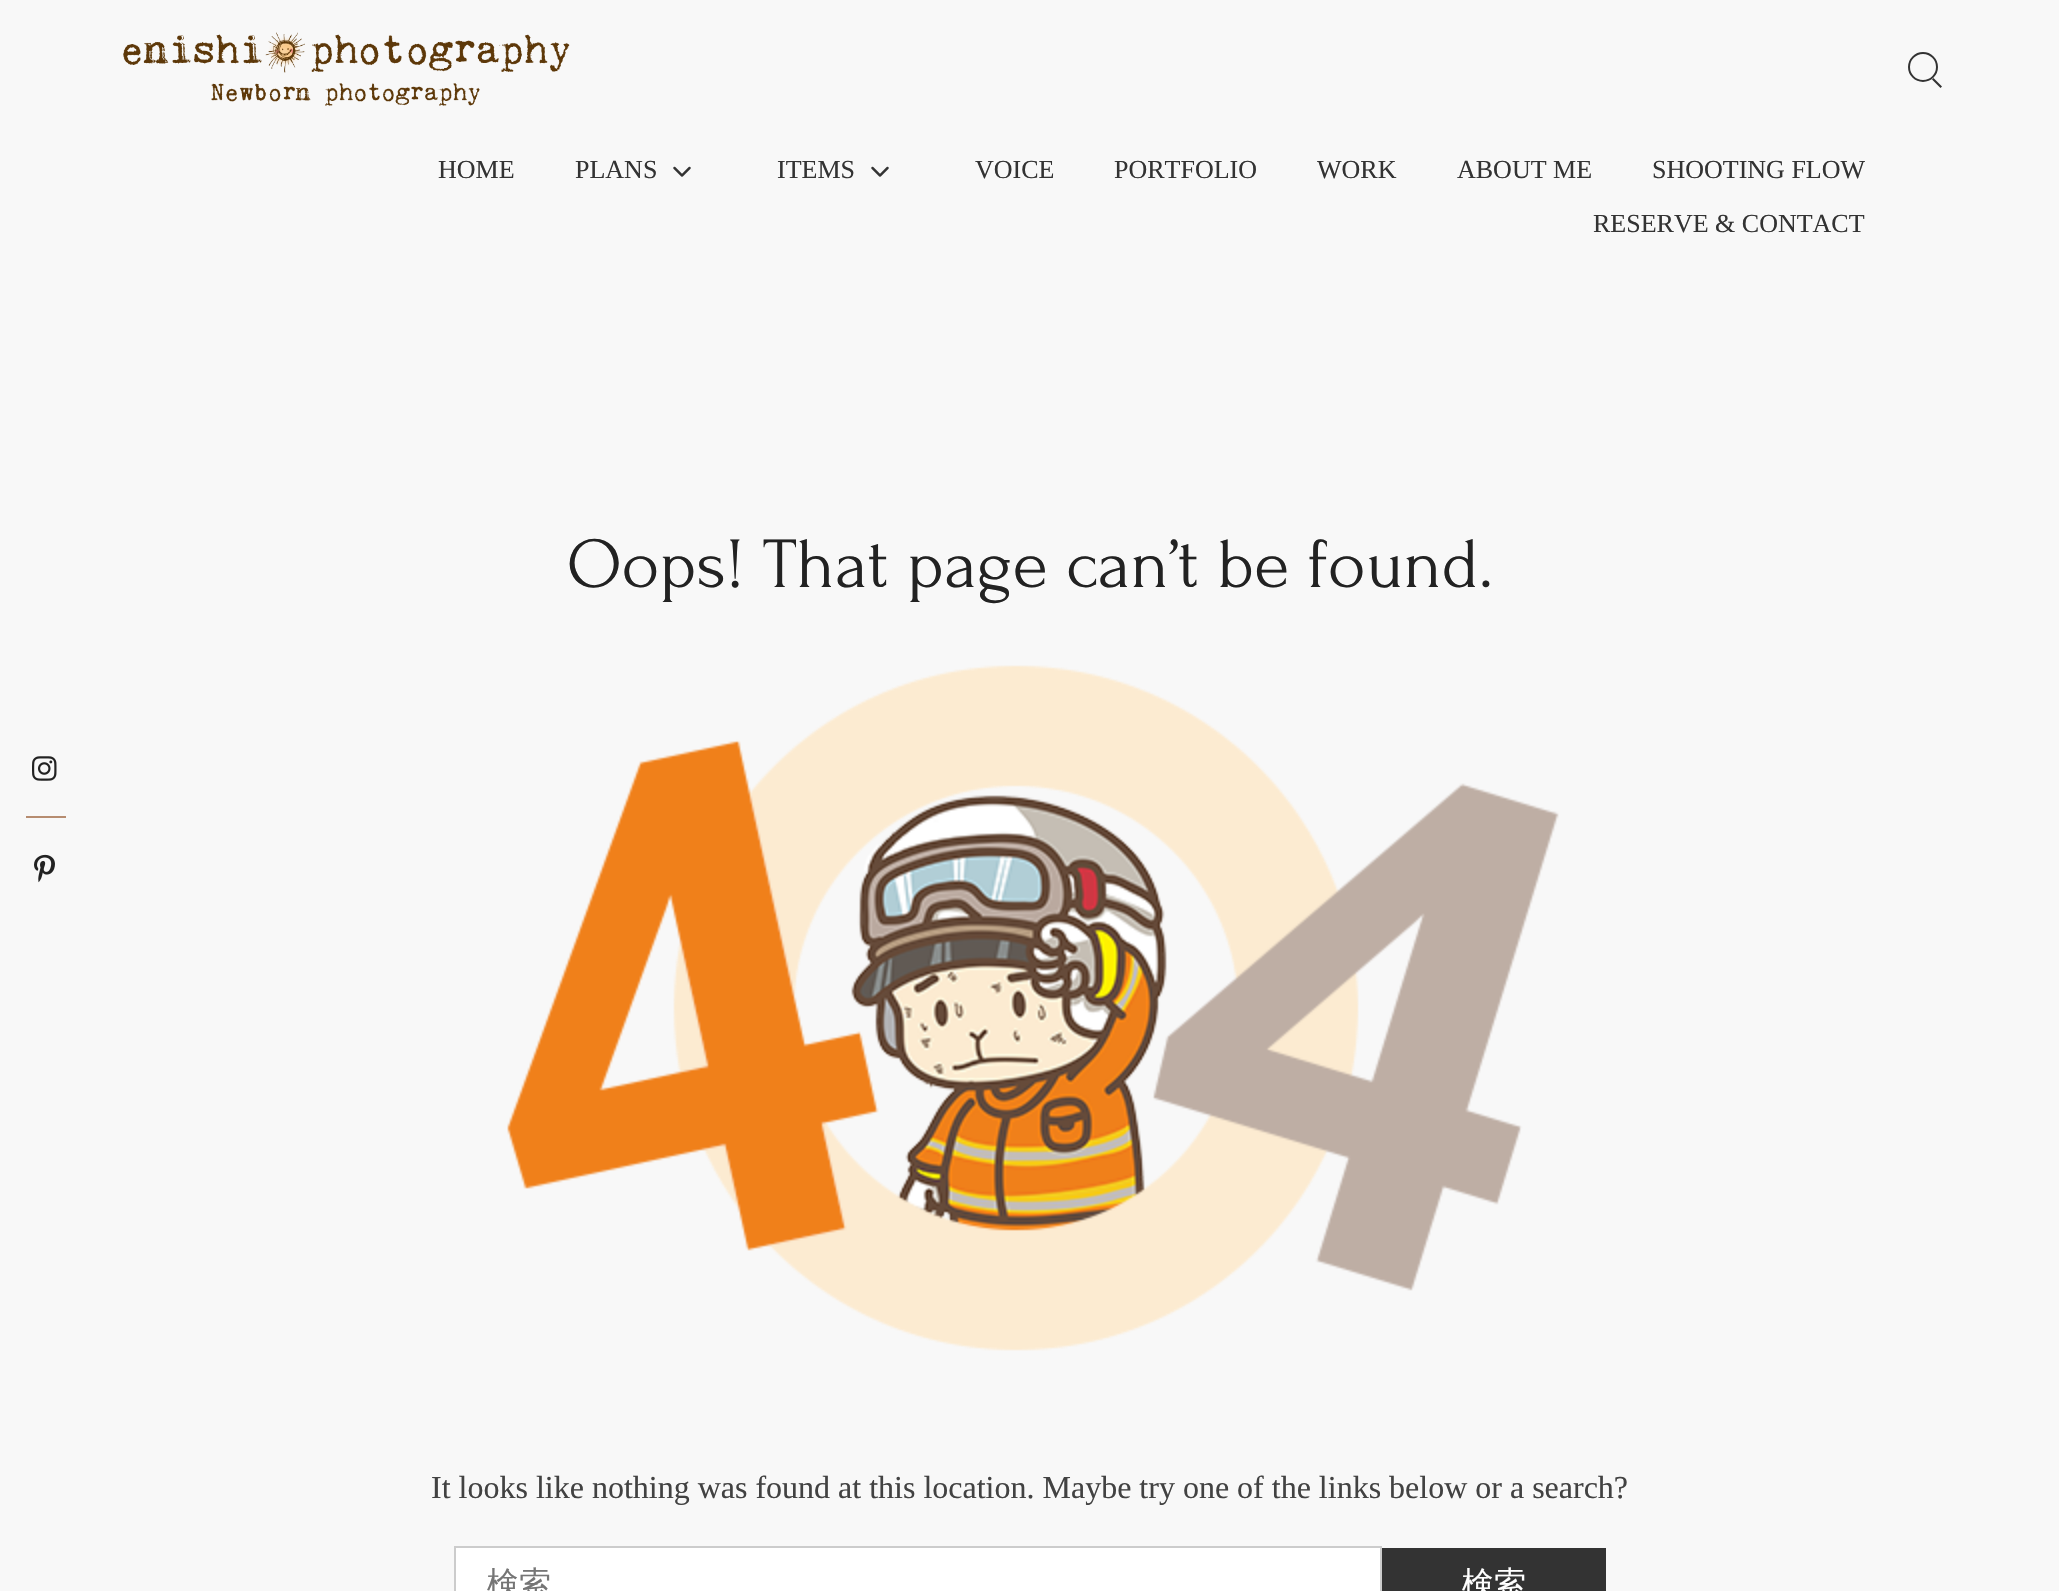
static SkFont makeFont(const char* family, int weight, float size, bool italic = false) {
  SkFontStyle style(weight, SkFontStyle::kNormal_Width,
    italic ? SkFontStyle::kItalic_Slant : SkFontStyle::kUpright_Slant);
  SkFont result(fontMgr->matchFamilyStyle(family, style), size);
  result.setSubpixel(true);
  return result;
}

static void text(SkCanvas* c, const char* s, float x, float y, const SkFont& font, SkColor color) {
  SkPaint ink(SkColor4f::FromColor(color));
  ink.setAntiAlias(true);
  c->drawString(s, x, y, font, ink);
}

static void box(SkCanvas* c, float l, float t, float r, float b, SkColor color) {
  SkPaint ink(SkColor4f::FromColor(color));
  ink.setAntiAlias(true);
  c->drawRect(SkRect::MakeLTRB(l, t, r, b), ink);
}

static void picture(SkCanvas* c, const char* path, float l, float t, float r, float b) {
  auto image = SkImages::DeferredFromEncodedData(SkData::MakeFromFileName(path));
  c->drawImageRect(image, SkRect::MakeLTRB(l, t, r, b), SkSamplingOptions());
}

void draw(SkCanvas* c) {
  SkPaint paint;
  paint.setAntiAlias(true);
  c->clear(0xfff8f8f8);
  picture(c, "img_01.png", 123, 32, 570, 106);
  paint.setStyle(SkPaint::kStroke_Style);
  paint.setStrokeWidth(2);
  paint.setColor(0xff333333);
  c->drawCircle(1923, 67, 14, paint);
  paint.setStyle(SkPaint::kFill_Style);
  c->drawPath(SkPathBuilder().moveTo(1933.5f, 78).lineTo(1942, 86.5f).lineTo(1940.5f, 88).lineTo(1932, 79.5f).close().detach(), paint);
  SkFont face1 = makeFont("Liberation Serif", 400, 26);
  text(c, "HOME", 438, 178, face1, 0xff333333);
  text(c, "PLANS", 575, 178, face1, 0xff333333);
  picture(c, "img_02.png", 673, 166, 691, 177);
  text(c, "ITEMS", 777, 178, face1, 0xff333333);
  picture(c, "img_02.png", 871, 166, 889, 177);
  text(c, "VOICE", 975, 178, face1, 0xff333333);
  text(c, "PORTFOLIO", 1114, 178, face1, 0xff333333);
  text(c, "WORK", 1317, 178, face1, 0xff333333);
  text(c, "ABOUT ME", 1457, 178, face1, 0xff333333);
  text(c, "SHOOTING FLOW", 1652, 178, face1, 0xff333333);
  text(c, "RESERVE & CONTACT", 1593, 232, face1, 0xff333333);
  picture(c, "img_03.png", 32, 756, 57, 781);
  box(c, 26, 816, 66, 818, 0xffb68c70);
  picture(c, "img_04.png", 34, 854, 55, 883);
  SkFont face2 = makeFont("Forum", 400, 72);
  text(c, "Oops! That page can’t be found.", 567, 587, face2, 0xff222222);
  picture(c, "img_05.png", 507, 665, 1559, 1351);
  SkFont face3 = makeFont("Liberation Serif", 400, 32);
  text(c, "It looks like nothing was found at this location. Maybe try one of the links below or a search?", 431, 1498, face3, 0xff424242);
  paint.setColor(0xffffffff);
  c->drawRect(SkRect::MakeLTRB(455, 1547, 1381, 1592), paint);
  paint.setStyle(SkPaint::kStroke_Style);
  paint.setColor(0xffcccccc);
  c->drawRect(SkRect::MakeLTRB(455, 1547, 1381, 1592), paint);
  SkFont face4 = makeFont("WenQuanYi Zen Hei", 500, 32);
  text(c, "検索", 487, 1594, face4, 0xff757575);
  box(c, 1382, 1548, 1606, 1591, 0xff333333);
  text(c, "検索", 1462, 1594, face4, 0xffffffff);
}
